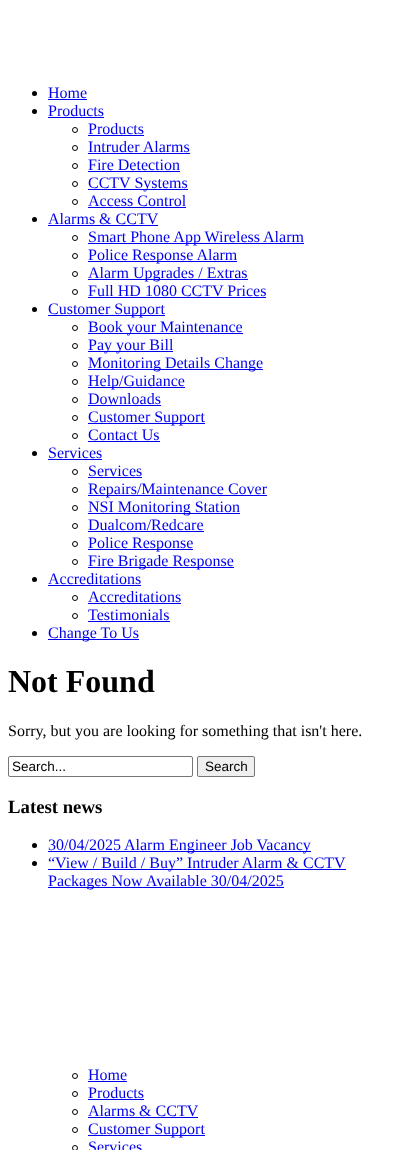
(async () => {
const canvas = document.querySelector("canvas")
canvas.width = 410
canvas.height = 1150
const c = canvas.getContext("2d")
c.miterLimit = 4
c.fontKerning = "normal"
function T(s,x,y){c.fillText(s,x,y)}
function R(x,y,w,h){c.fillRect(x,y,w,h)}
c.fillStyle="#fff"
R(0,0,410,1150)
c.fillStyle="#000"
c.beginPath()
c.arc(34.5,93.5,2.5,0,7)
c.fill()
c.font="16px Liberation Serif"
c.fillStyle="#00e"
T("Home",48,98)
R(48,99,39,1)
c.fillStyle="#000"
c.beginPath()
c.arc(34.5,111.5,2.5,0,7)
c.fill()
c.fillStyle="#00e"
T("Products",48,116)
R(48,117,56,1)
c.beginPath()
c.arc(75,130,2.5,0,7)
c.strokeStyle="#000"
c.stroke()
T("Products",88,134)
R(88,135,56,1)
c.beginPath()
c.arc(75,148,2.5,0,7)
c.stroke()
T("Intruder Alarms",88,152)
R(88,153,102,1)
c.beginPath()
c.arc(75,166,2.5,0,7)
c.stroke()
T("Fire Detection",88,170)
R(88,171,92,1)
c.beginPath()
c.arc(75,184,2.5,0,7)
c.stroke()
R(88,189,100,1)
T("CCTV Systems",88,188)
c.beginPath()
c.arc(75,202,2.5,0,7)
c.stroke()
T("Access Control",88,206)
R(88,207,98,1)
c.fillStyle="#000"
c.beginPath()
c.arc(34.5,219.5,2.5,0,7)
c.fill()
c.fillStyle="#00e"
T("Alarms & CCTV",48,224)
R(48,225,110,1)
c.beginPath()
c.arc(75,238,2.5,0,7)
c.stroke()
R(88,243,216,1)
T("Smart Phone App Wireless Alarm",88,242)
c.beginPath()
c.arc(75,256,2.5,0,7)
c.stroke()
R(88,261,149,1)
T("Police Response Alarm",88,260)
c.beginPath()
c.arc(75,274,2.5,0,7)
c.stroke()
R(88,279,160,1)
T("Alarm Upgrades / Extras",88,278)
c.beginPath()
c.arc(75,292,2.5,0,7)
c.stroke()
T("Full HD 1080 CCTV Prices",88,296)
R(88,297,178,1)
c.fillStyle="#000"
c.beginPath()
c.arc(34.5,309.5,2.5,0,7)
c.fill()
c.fillStyle="#00e"
R(48,315,117,1)
T("Customer Support",48,314)
c.beginPath()
c.arc(75,328,2.5,0,7)
c.stroke()
R(88,333,155,1)
T("Book your Maintenance",88,332)
c.beginPath()
c.arc(75,346,2.5,0,7)
c.stroke()
R(88,351,85,1)
T("Pay your Bill",88,350)
c.beginPath()
c.arc(75,364,2.5,0,7)
c.stroke()
R(88,369,175,1)
T("Monitoring Details Change",88,368)
c.beginPath()
c.arc(75,382,2.5,0,7)
c.stroke()
R(88,387,97,1)
T("Help/Guidance",88,386)
c.beginPath()
c.arc(75,400,2.5,0,7)
c.stroke()
T("Downloads",88,404)
R(88,405,73,1)
c.beginPath()
c.arc(75,418,2.5,0,7)
c.stroke()
R(88,423,117,1)
T("Customer Support",88,422)
c.beginPath()
c.arc(75,436,2.5,0,7)
c.stroke()
T("Contact Us",88,440)
R(88,441,72,1)
c.fillStyle="#000"
c.beginPath()
c.arc(34.5,453.5,2.5,0,7)
c.fill()
c.fillStyle="#00e"
T("Services",48,458)
R(48,459,54,1)
c.beginPath()
c.arc(75,472,2.5,0,7)
c.stroke()
T("Services",88,476)
R(88,477,54,1)
c.beginPath()
c.arc(75,490,2.5,0,7)
c.stroke()
R(88,495,179,1)
T("Repairs/Maintenance Cover",88,494)
c.beginPath()
c.arc(75,508,2.5,0,7)
c.stroke()
R(88,513,152,1)
T("NSI Monitoring Station",88,512)
c.beginPath()
c.arc(75,526,2.5,0,7)
c.stroke()
T("Dualcom/Redcare",88,530)
R(88,531,116,1)
c.beginPath()
c.arc(75,544,2.5,0,7)
c.stroke()
R(88,549,105,1)
T("Police Response",88,548)
c.beginPath()
c.arc(75,562,2.5,0,7)
c.stroke()
R(88,567,146,1)
T("Fire Brigade Response",88,566)
c.fillStyle="#000"
c.beginPath()
c.arc(34.5,579.5,2.5,0,7)
c.fill()
c.fillStyle="#00e"
T("Accreditations",48,584)
R(48,585,93,1)
c.beginPath()
c.arc(75,598,2.5,0,7)
c.stroke()
T("Accreditations",88,602)
R(88,603,93,1)
c.beginPath()
c.arc(75,616,2.5,0,7)
c.stroke()
T("Testimonials",88,620)
R(88,621,82,1)
c.fillStyle="#000"
c.beginPath()
c.arc(34.5,633.5,2.5,0,7)
c.fill()
c.fillStyle="#00e"
R(48,639,91,1)
T("Change To Us",48,638)
c.font="bold 32px Liberation Serif"
c.fillStyle="#000"
T("Not Found",8,692)
c.font="16px Liberation Serif"
T("Sorry, but you are looking for something that isn't here.",8,736)
c.beginPath()
c.roundRect(8.5,756.5,184,20,1.5)
c.strokeStyle="#767676"
c.stroke()
c.font="13.5px Liberation Sans"
T("Search...",12,771)
c.fillStyle="#efefef"
c.beginPath()
c.roundRect(197.5,756.5,57,20,1.5)
c.fill()
c.stroke()
c.fillStyle="#000"
T("Search",205,771)
c.font="bold 18.75px Liberation Serif"
T("Latest news",8,813)
c.beginPath()
c.arc(34.5,845.5,2.5,0,7)
c.fill()
c.fillStyle="#00e"
R(48,851,263,1)
c.font="16px Liberation Serif"
T("30/04/2025 Alarm Engineer Job Vacancy",48,850)
c.fillStyle="#000"
c.beginPath()
c.arc(34.5,863.5,2.5,0,7)
c.fill()
c.fillStyle="#00e"
R(48,869,298,1)
T("“View / Build / Buy” Intruder Alarm & CCTV",48,868)
R(48,887,236,1)
T("Packages Now Available 30/04/2025",48,886)
c.beginPath()
c.arc(75,1076,2.5,0,7)
c.strokeStyle="#000"
c.stroke()
T("Home",88,1080)
R(88,1081,39,1)
c.beginPath()
c.arc(75,1094,2.5,0,7)
c.stroke()
T("Products",88,1098)
R(88,1099,56,1)
c.beginPath()
c.arc(75,1112,2.5,0,7)
c.stroke()
T("Alarms & CCTV",88,1116)
R(88,1117,110,1)
c.beginPath()
c.arc(75,1130,2.5,0,7)
c.stroke()
R(88,1135,117,1)
T("Customer Support",88,1134)
c.beginPath()
c.arc(75,1148,2.5,0,7)
c.stroke()
T("Services",88,1152)
})()
